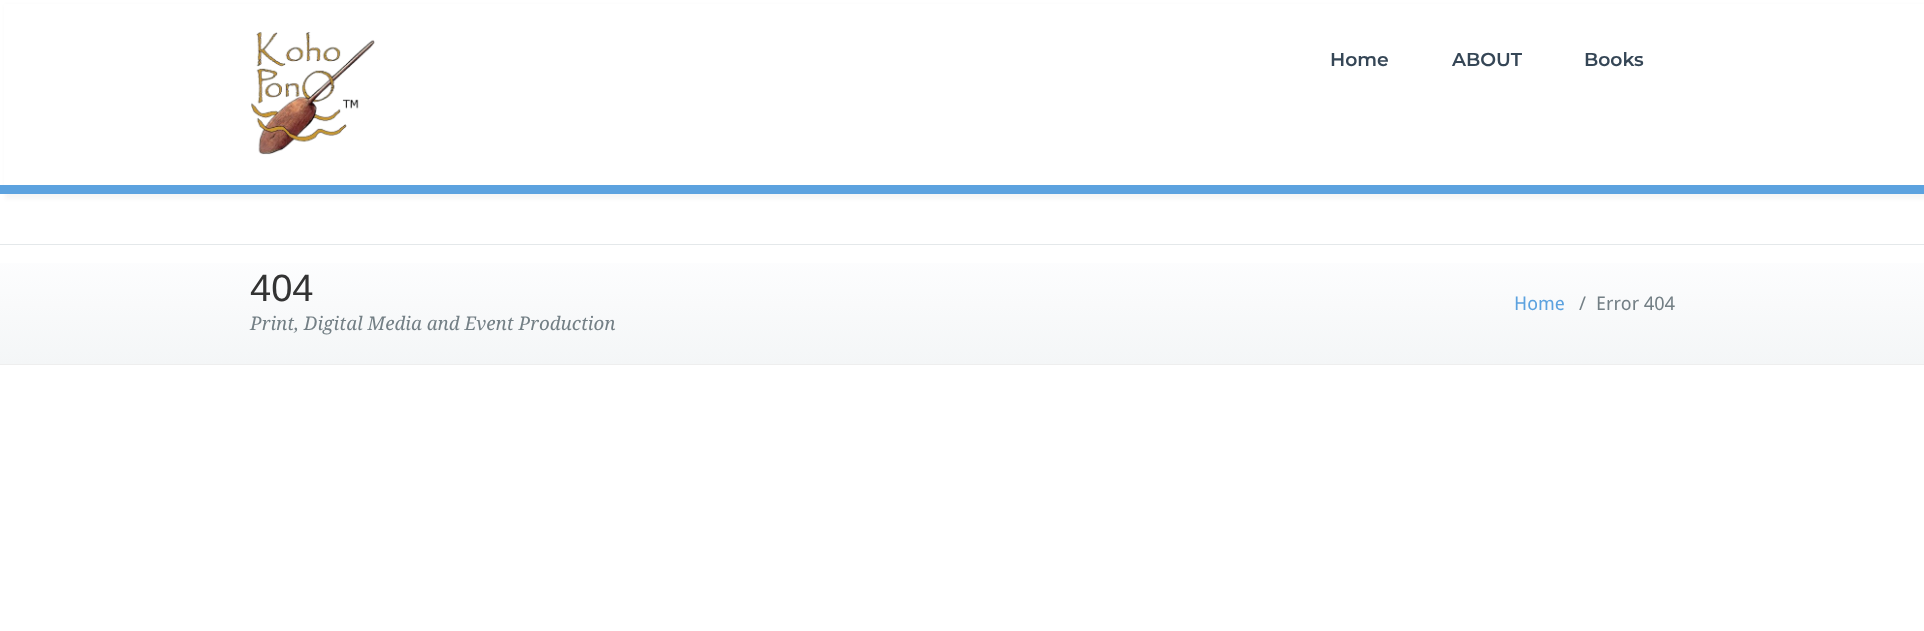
(async () => {
const canvas = document.querySelector("canvas")
canvas.width = 1924
canvas.height = 631
const c = canvas.getContext("2d")
c.miterLimit = 4
c.fontKerning = "normal"
function T(s,x,y){c.fillText(s,x,y)}
function R(x,y,w,h){c.fillRect(x,y,w,h)}
async function I(src,x,y,w,h){const img=new Image();img.src=src;await img.decode();c.drawImage(img,x,y,w,h)}
let gradient
c.fillStyle="#fff"
R(0,0,1924,631)
c.fillStyle="#0000000a"
c.filter="blur(2px)"
c.beginPath()
c.rect(5,5,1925,194)
c.fill()
c.filter="none"
c.fillStyle="#fff"
R(4,4,1920,181)
c.fillStyle="#5ca2df"
R(0,185,1924,9)
await I("1.png",251,32,124,123)
c.font="600 18.75px Montserrat"
c.fillStyle="#354656"
T("Home",1330,66)
T("ABOUT",1452,66)
T("Books",1584,66)
gradient = c.createLinearGradient(963,245,963,364)
gradient.addColorStop(0,"#fefeff")
gradient.addColorStop(1,"#f4f6f7")
c.fillStyle = gradient
R(0,263,1924,101)
c.fillStyle="#e4e8ea"
R(0,244,1924,1)
c.fillStyle="#eee"
R(0,364,1924,1)
c.font="38px Liberation Sans"
c.fillStyle="#333"
T("404",250,301)
c.font="italic 18.75px Droid Serif"
c.fillStyle="#737f85"
T("Print, Digital Media and Event Production",250,330)
c.font="18.75px Droid Sans"
c.fillStyle="#5ca2df"
T("Home",1514,310)
c.fillStyle="#737f85"
T("/",1579,310)
T("Error 404",1596,310)
})()
